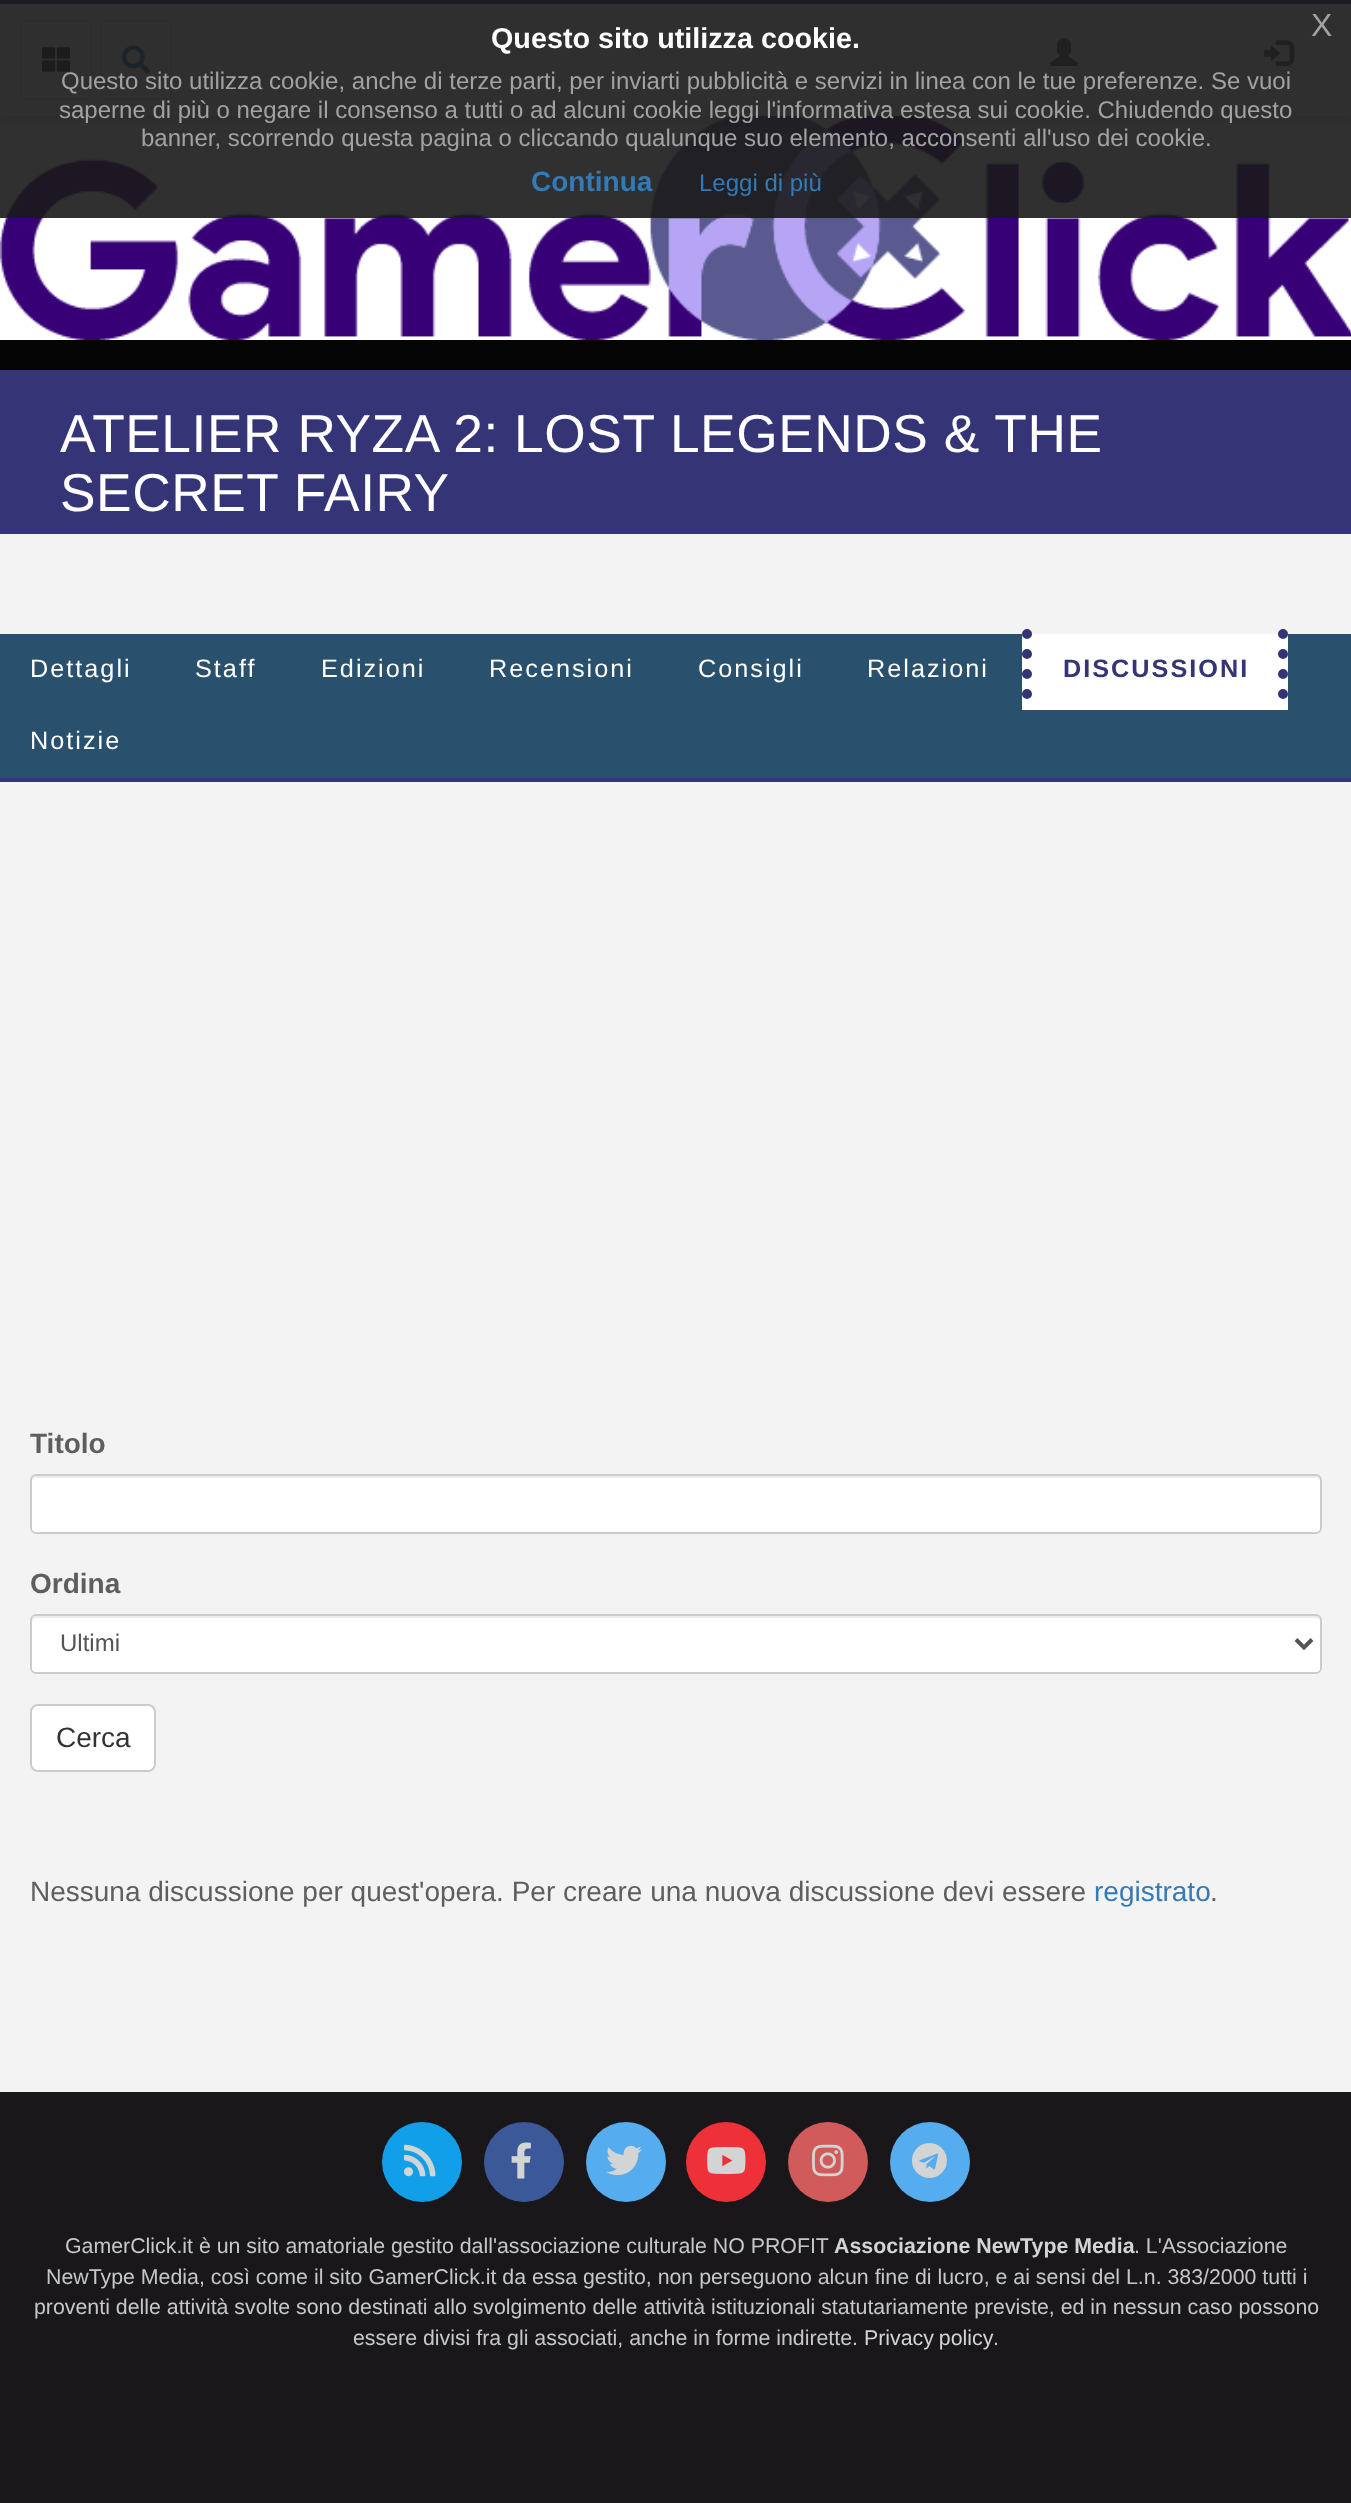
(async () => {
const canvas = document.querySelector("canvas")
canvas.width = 1351
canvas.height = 2503
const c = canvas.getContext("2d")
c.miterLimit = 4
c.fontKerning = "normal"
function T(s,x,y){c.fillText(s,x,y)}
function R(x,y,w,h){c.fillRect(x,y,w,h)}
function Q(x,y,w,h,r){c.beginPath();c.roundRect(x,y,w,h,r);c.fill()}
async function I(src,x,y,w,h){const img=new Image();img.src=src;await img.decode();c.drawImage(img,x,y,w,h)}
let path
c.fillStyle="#1a171b"
R(0,0,1351,2503)
c.fillStyle="#fff"
R(0,116,1351,224)
await I("5.png",0,116,1351,224)
c.fillStyle="#00000033"
c.filter="blur(5px)"
c.beginPath()
c.rect(0,4,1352,116)
c.fill()
c.filter="none"
c.fillStyle="#f3f3f3"
R(0,4,1351,112)
c.fillStyle="#343477"
R(0,0,1351,4)
c.strokeStyle="#ddd"
c.lineWidth=2
c.strokeRect(21,21,70,78)
await I("1.png",42,47,28,25)
c.strokeRect(101,21,70,78)
await I("2.png",122,45,28,29)
await I("3.png",1050,38,28,28)
await I("4.png",1264,40,31,26)
c.fillStyle="#191919e6"
R(0,0,1351,218)
c.font="bold 28.75px Liberation Sans"
c.fillStyle="#fff"
T("Questo sito utilizza cookie.",491,48)
c.font="32px Liberation Sans"
c.fillStyle="#a2a2a2"
T("X",1311,36)
c.font="24px Liberation Sans"
T("Questo sito utilizza cookie, anche di terze parti, per inviarti pubblicità e servizi in linea con le tue preferenze. Se vuoi",61,89)
T("saperne di più o negare il consenso a tutti o ad alcuni cookie leggi l'informativa estesa sui cookie. Chiudendo questo",59,118)
T("banner, scorrendo questa pagina o cliccando qualunque suo elemento, acconsenti all'uso dei cookie.",141,146)
c.font="bold 28px Liberation Sans"
c.fillStyle="#337ab7"
T("Continua",531,191)
c.font="24px Liberation Sans"
T("Leggi di più",699,191)
c.fillStyle="#050505"
R(0,340,1351,30)
c.fillStyle="#343477"
R(0,370,1351,164)
c.fillStyle="#f3f3f3"
R(0,534,1351,1558)
c.letterSpacing="0.55px"
c.font="53.3px Liberation Sans"
c.fillStyle="#fff"
T("ATELIER RYZA 2: LOST LEGENDS & THE",60,452)
T("SECRET FAIRY",60,511)
c.fillStyle="#29506d"
R(0,634,1351,144)
c.fillStyle="#343477"
R(0,778,1351,4)
c.letterSpacing="2px"
c.font="25.25px Liberation Sans"
c.fillStyle="#fff"
T("Dettagli",30,677)
T("Staff",195,677)
T("Edizioni",321,677)
T("Recensioni",489,677)
T("Consigli",698,677)
T("Relazioni",867,677)
R(1022,634,266,76)
path = new Path2D("M1283 634v76")
c.strokeStyle="#343477"
c.lineWidth=10
c.lineCap="round"
c.setLineDash([0,20])
c.stroke(path)
path = new Path2D("M1027 634v76")
c.stroke(path)
c.font="bold 25.25px Liberation Sans"
c.fillStyle="#343477"
T("DISCUSSIONI",1063,677)
c.font="25.25px Liberation Sans"
c.fillStyle="#fff"
T("Notizie",30,749)
c.letterSpacing="0px"
c.font="bold 28px Liberation Sans"
c.fillStyle="#5e5e5e"
T("Titolo",30,1453)
c.fillStyle="#fff"
Q(30,1474,1292,60,6)
c.fillStyle="#ececec"
path = new Path2D("M36 1478h1280c2 0 4 2 4 4c0-3 0-6-4-6h-1280c-4 0-4 3-4 6c0-2 2-4 4-4z")
c.fill(path)
c.beginPath()
c.roundRect(31,1475,1290,58,5)
c.strokeStyle="#ccc"
c.lineWidth=2
c.setLineDash([])
c.stroke()
c.fillStyle="#5e5e5e"
T("Ordina",30,1593)
c.fillStyle="#fff"
Q(30,1614,1292,60,6)
c.fillStyle="#ececec"
path = new Path2D("M36 1618h1280c2 0 4 2 4 4c0-3 0-6-4-6h-1280c-4 0-4 3-4 6c0-2 2-4 4-4z")
c.fill(path)
c.beginPath()
c.roundRect(31,1615,1290,58,5)
c.stroke()
path = new Path2D("M1296 1639.5l8 8l8-8")
c.strokeStyle="#555"
c.lineWidth=4
c.lineCap="butt"
c.stroke(path)
c.font="24px Liberation Sans"
c.fillStyle="#555"
T("Ultimi",60,1651)
c.fillStyle="#fff"
c.beginPath()
c.roundRect(31,1705,124,66,7)
c.fill()
c.strokeStyle="#ccc"
c.lineWidth=2
c.stroke()
c.font="28px Liberation Sans"
c.fillStyle="#333"
T("Cerca",56,1747)
c.fillStyle="#5e5e5e"
T("Nessuna discussione per quest'opera. Per creare una nuova discussione devi essere",30,1901)
c.fillStyle="#337ab7"
T("registrato",1094,1901)
c.fillStyle="#5e5e5e"
T(".",1210,1901)
c.fillStyle="#129fea"
c.beginPath()
c.arc(422,2162,40,0,7)
c.fill()
await I("6.png",404,2144,32,33)
c.fillStyle="#3b5998"
c.beginPath()
c.arc(524,2162,40,0,7)
c.fill()
await I("7.png",511,2142,20,37)
c.fillStyle="#55acee"
c.beginPath()
c.arc(626,2162,40,0,7)
c.fill()
await I("8.png",606,2145,36,31)
c.fillStyle="#ee3138"
c.beginPath()
c.arc(726,2162,40,0,7)
c.fill()
await I("9.png",707,2147,39,27)
c.fillStyle="#d15a5a"
c.beginPath()
c.arc(828,2162,40,0,7)
c.fill()
await I("10.png",812,2144,32,33)
c.fillStyle="#55acee"
c.beginPath()
c.arc(930,2162,40,0,7)
c.fill()
await I("11.png",912,2143,35,35)
c.font="21.33px Liberation Sans"
c.fillStyle="#c6c8c7"
T("GamerClick.it è un sito amatoriale gestito dall'associazione culturale NO PROFIT",65,2253)
c.font="bold 21.33px Liberation Sans"
c.fillStyle="#d3d5d4"
T("Associazione NewType Media",834,2253)
c.font="21.33px Liberation Sans"
c.fillStyle="#c6c8c7"
T(". L'Associazione",1134,2253)
T("NewType Media, così come il sito GamerClick.it da essa gestito, non perseguono alcun fine di lucro, e ai sensi del L.n. 383/2000 tutti i",46,2284)
T("proventi delle attività svolte sono destinati allo svolgimento delle attività istituzionali statutariamente previste, ed in nessun caso possono",34,2314)
T("essere divisi fra gli associati, anche in forme indirette.",353,2345)
c.wordSpacing="-1px"
c.fillStyle="#d3d5d4"
T("Privacy policy",864,2345)
c.wordSpacing="0px"
c.fillStyle="#c6c8c7"
T(".",993,2345)
})()
